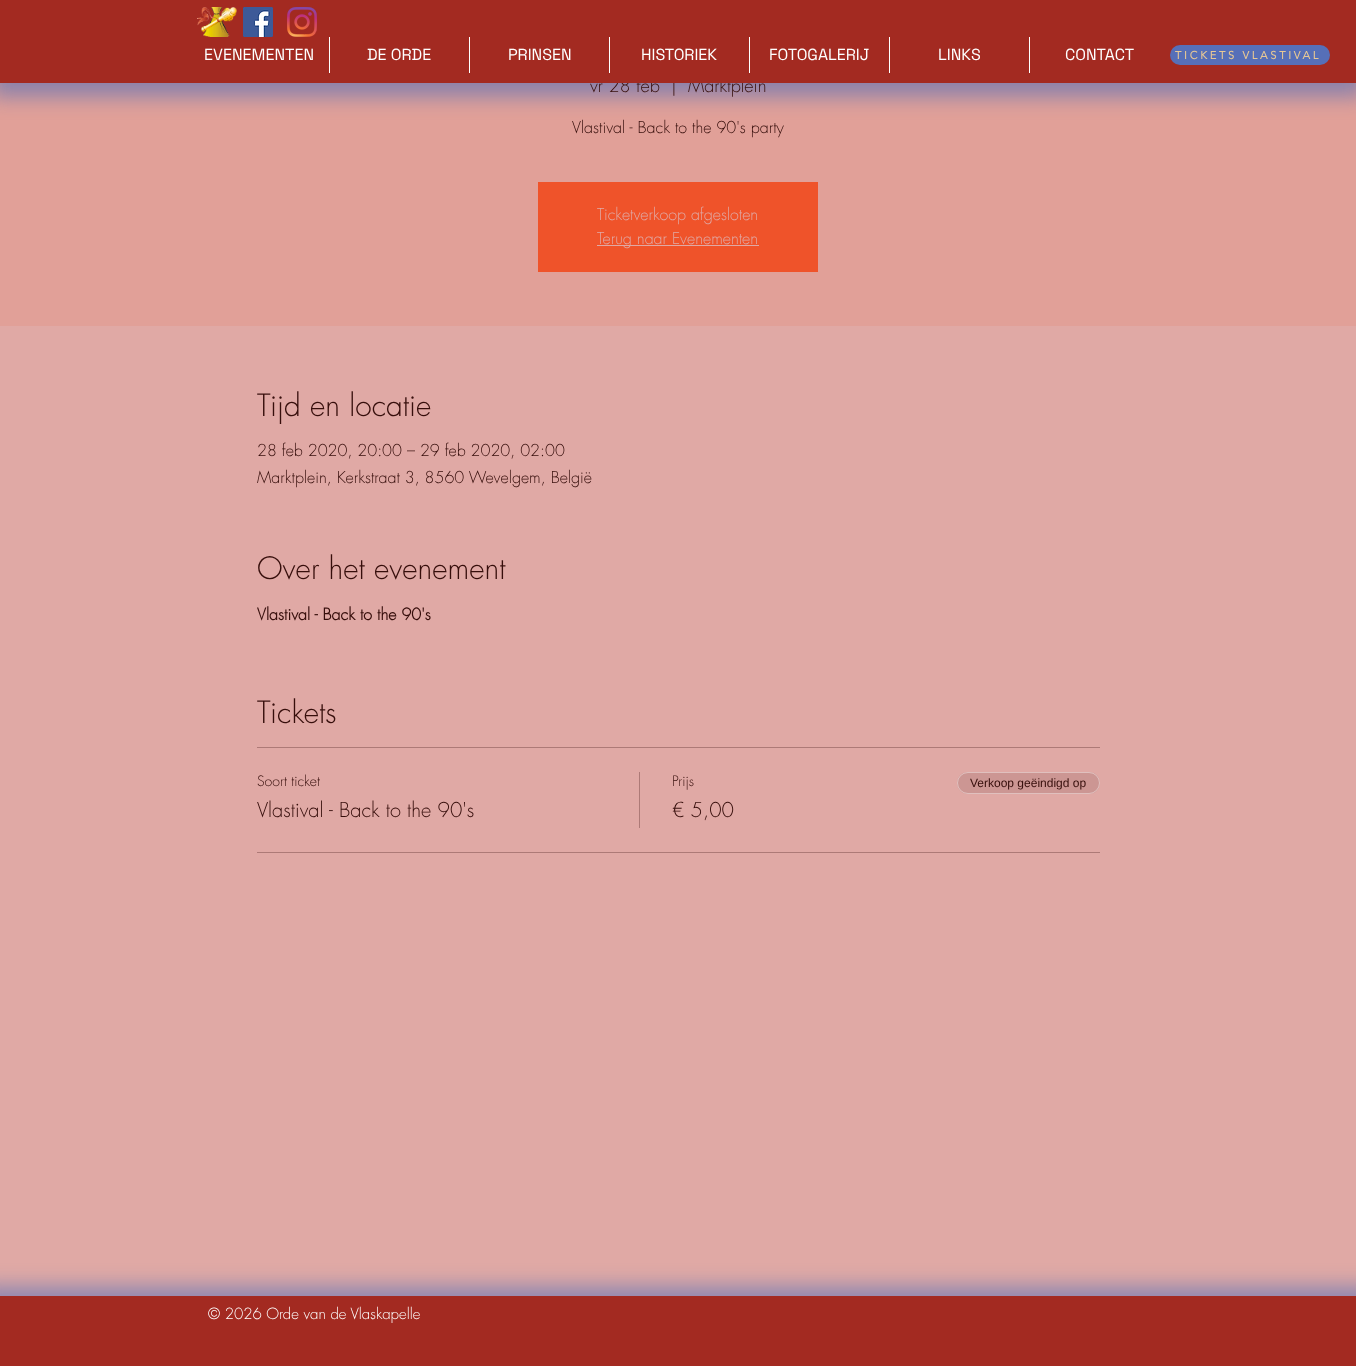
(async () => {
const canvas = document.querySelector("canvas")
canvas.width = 1356
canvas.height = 1366
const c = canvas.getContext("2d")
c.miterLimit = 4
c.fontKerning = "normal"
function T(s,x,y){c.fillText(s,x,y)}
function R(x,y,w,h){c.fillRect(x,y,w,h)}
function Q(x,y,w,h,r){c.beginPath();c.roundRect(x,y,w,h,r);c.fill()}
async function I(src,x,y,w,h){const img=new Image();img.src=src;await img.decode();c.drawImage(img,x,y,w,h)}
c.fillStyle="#e0a9a5"
R(0,0,1356,1366)
c.fillStyle="#e1a098"
R(0,83,1356,243)
c.fillStyle="#536eb799"
c.filter="blur(10px)"
c.beginPath()
c.rect(-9,-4,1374,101)
c.fill()
c.filter="none"
c.font="300 18px futura"
c.fillStyle="#360e0b"
T("vr 28 feb",590,92)
T("|",671,92)
T("Marktplein",688,92)
c.fillStyle="#a32a21"
R(0,0,1356,83)
await I("1.png",197,7,40,30)
await I("2.png",243,7,30,30)
await I("3.png",287,7,30,30)
c.font="16px Space Grotesk"
c.fillStyle="#fff"
T("EVENEMENTEN",204,60)
R(329,37,1,36)
T("DE ORDE",367,60)
R(469,37,1,36)
T("PRINSEN",508,60)
R(609,37,1,36)
T("HISTORIEK",641,60)
R(749,37,1,36)
T("FOTOGALERIJ",769,60)
R(889,37,1,36)
T("LINKS",938,60)
R(1029,37,1,36)
T("CONTACT",1065,60)
c.fillStyle="#566fb8"
Q(1170,45,160,20,10)
c.letterSpacing="2.75px"
c.font="bold 11px 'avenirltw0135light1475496'"
c.fillStyle="#e8c894"
T("TICKETS VLASTIVAL",1175,59)
c.letterSpacing="0px"
c.font="300 16px futura"
c.fillStyle="#360e0b"
T("Vlastival - Back to the 90's party",572,133)
c.fillStyle="#ef532a"
R(538,182,280,90)
c.fillStyle="#e0a9a5"
T("Ticketverkoop afgesloten",597,220)
R(597,245,162,1)
T("Terug naar Evenementen",597,244)
c.font="300 30px futura"
c.fillStyle="#360e0b"
T("Tijd en locatie",257,416)
c.font="300 16px futura"
T("28 feb 2020, 20:00 – 29 feb 2020, 02:00",257,456)
T("Marktplein, Kerkstraat 3, 8560 Wevelgem, België",257,483)
c.font="300 30px futura"
T("Over het evenement",257,579)
c.font="bold 16px futura"
T("Vlastival - Back to the 90's",257,620)
c.font="300 30px futura"
T("Tickets",257,723)
c.fillStyle="#ad7a77"
R(257,747,843,1)
R(257,852,843,1)
c.font="300 14px futura"
c.fillStyle="#360e0b"
T("Soort ticket",257,786)
c.font="300 20px futura"
T("Vlastival - Back to the 90's",257,817)
c.fillStyle="#ad7a77"
R(639,772,1,56)
c.font="300 14px futura"
c.fillStyle="#360e0b"
T("Prijs",672,786)
c.font="300 20px futura"
T("€ 5,00",672,817)
c.fillStyle="#cc9693"
Q(957,772,143,22,11)
c.beginPath()
c.roundRect(957.5,772.5,142,21,10.5)
c.strokeStyle="#ffffff66"
c.stroke()
c.font="12px Liberation Sans"
c.fillStyle="#360e0b"
T("Verkoop geëindigd op",970,787)
c.fillStyle="#566fb899"
c.filter="blur(10px)"
c.beginPath()
c.rect(-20,1286,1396,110)
c.fill()
c.filter="none"
c.fillStyle="#a32a21"
R(0,1296,1356,70)
c.font="300 15px futura"
c.fillStyle="#fff"
T("© 2026 Orde van de Vlaskapelle",208,1319)
})()
